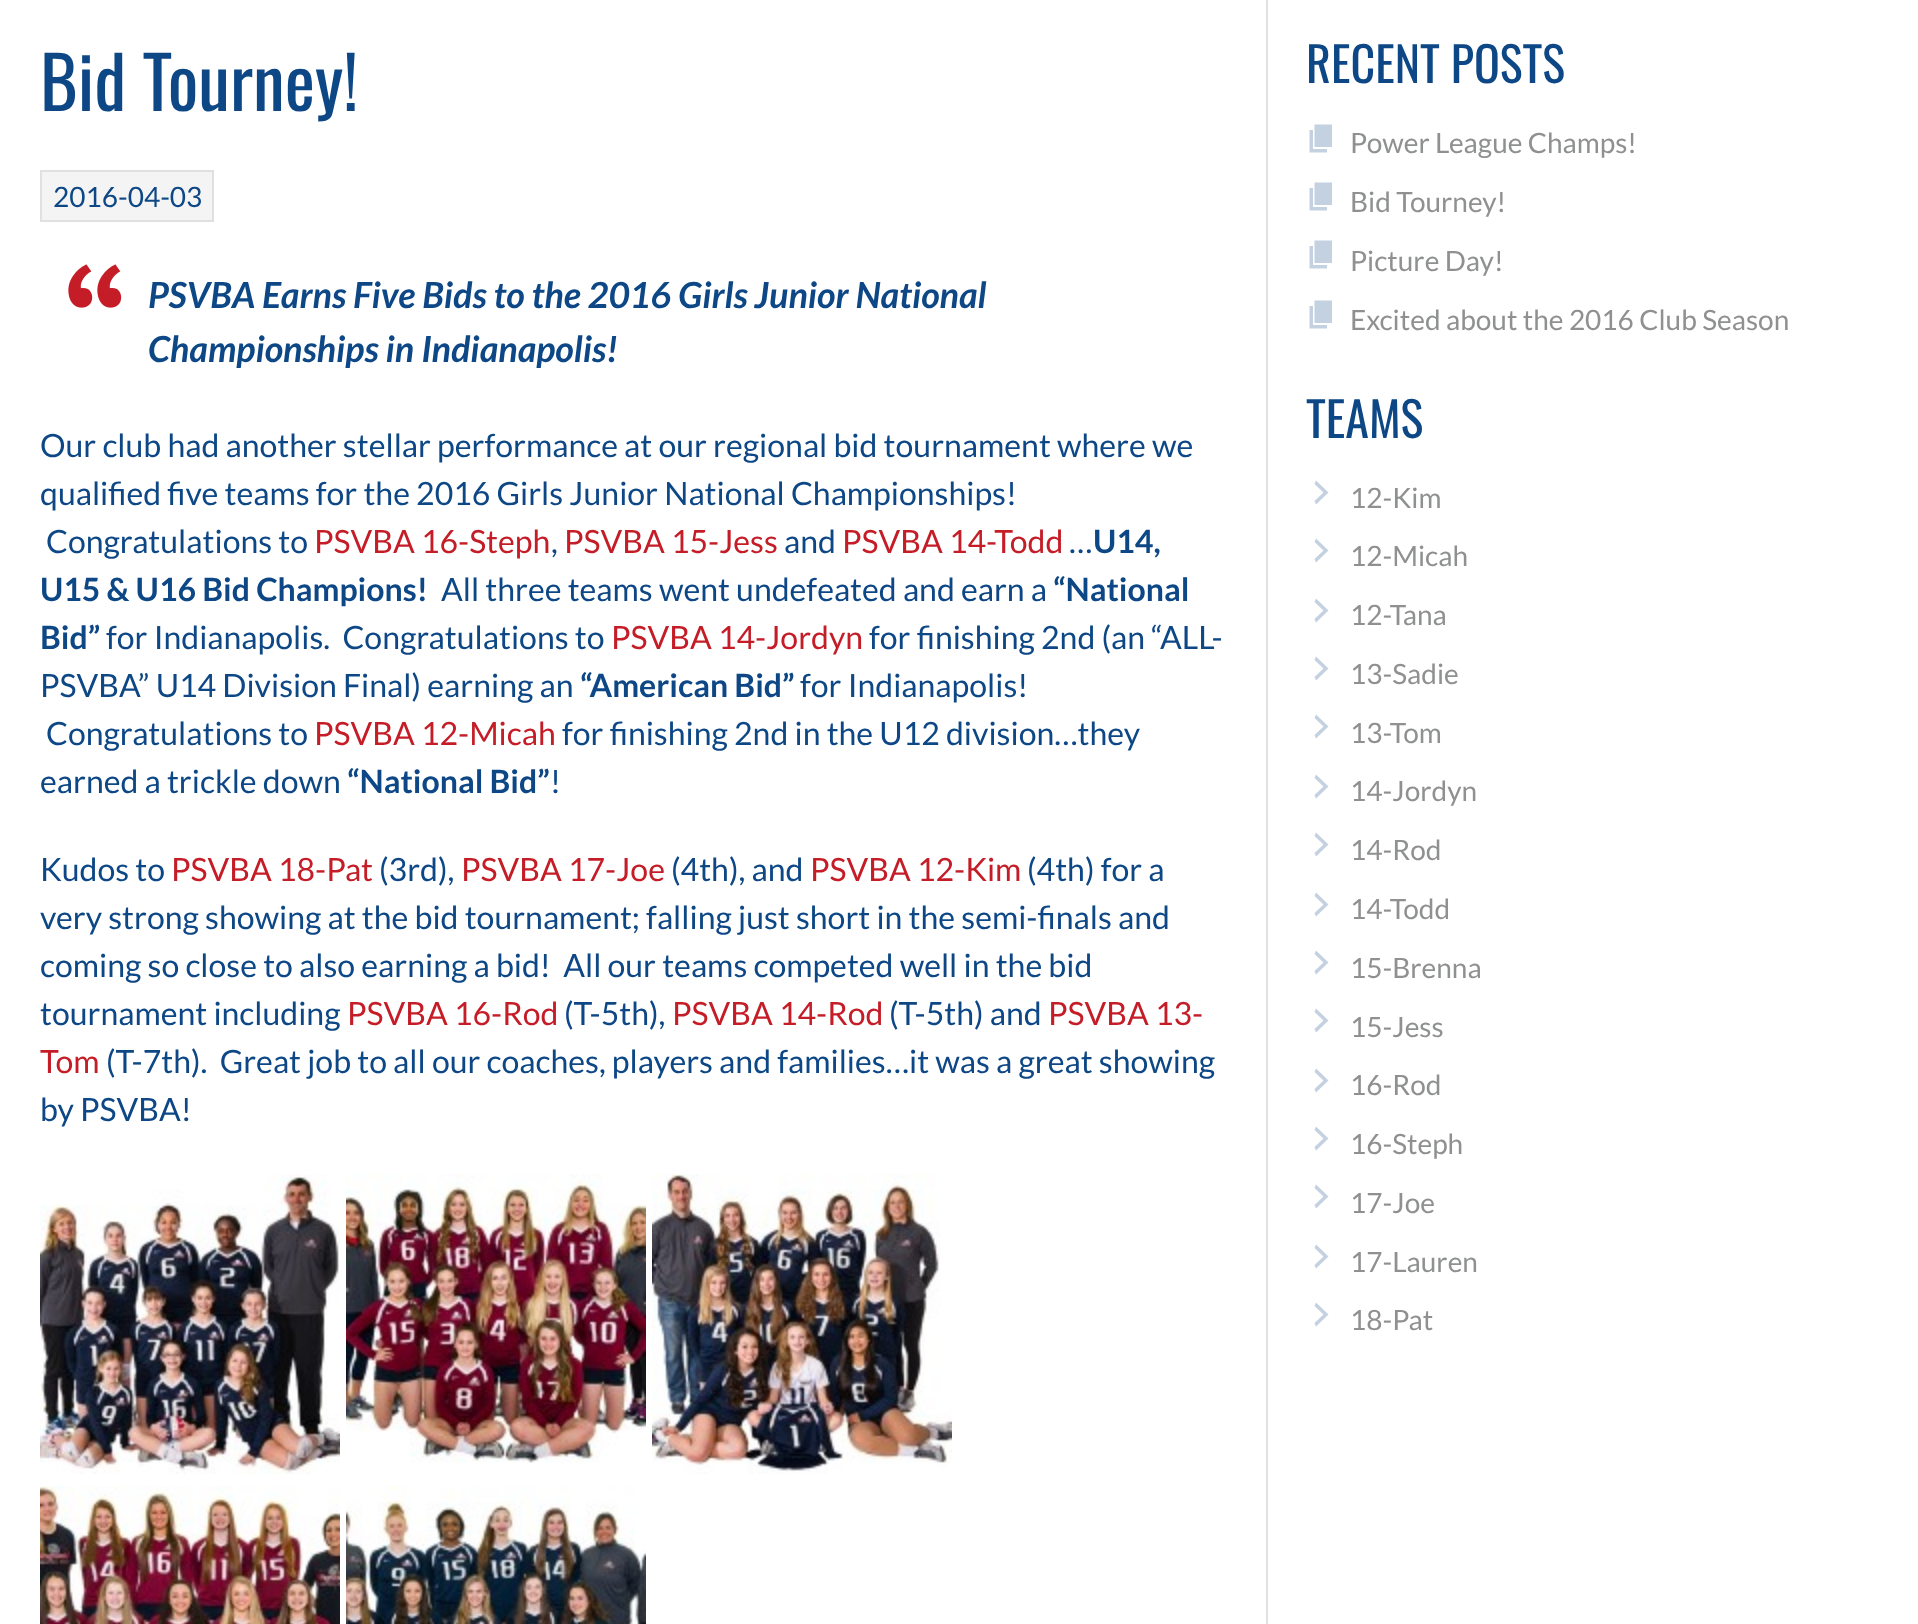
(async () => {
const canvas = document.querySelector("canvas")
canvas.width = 1918
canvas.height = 1624
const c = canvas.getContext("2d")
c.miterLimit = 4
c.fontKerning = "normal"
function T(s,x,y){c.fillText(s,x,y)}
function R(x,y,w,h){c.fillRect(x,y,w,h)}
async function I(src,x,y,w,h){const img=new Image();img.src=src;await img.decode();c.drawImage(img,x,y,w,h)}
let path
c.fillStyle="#fff"
R(0,0,1918,1624)
c.fillStyle="#e0e0e0"
R(1266,0,2,1624)
c.font="72px Oswald"
c.fillStyle="#0d4785"
T("Bid Tourney!",40,111)
c.fillStyle="#f4f4f4"
c.beginPath()
c.rect(41,171,172,50)
c.fill()
c.strokeStyle="#e0e0e0"
c.lineWidth=2
c.stroke()
c.font="28px Lato"
c.fillStyle="#0d4785"
T("2016-04-03",53,207)
await I("1.png",68,264,54,44)
c.font="italic bold 36px Lato"
T("PSVBA Earns Five Bids to the 2016 Girls Junior National",148,308)
T("Championships in Indianapolis!",148,362)
c.font="32px Lato"
T("Our club had another stellar performance at our regional bid tournament where we",40,457)
T("qualified five teams for the 2016 Girls Junior National Championships!",40,505)
T("Congratulations to",46,553)
c.fillStyle="#c51d27"
T("PSVBA 16-Steph",314,553)
c.fillStyle="#0d4785"
T(",",551,553)
c.fillStyle="#c51d27"
T("PSVBA 15-Jess",564,553)
c.fillStyle="#0d4785"
T("and",784,553)
c.fillStyle="#c51d27"
T("PSVBA 14-Todd",842,553)
c.fillStyle="#0d4785"
T("…",1069,553)
c.font="bold 32px Lato"
T("U14,",1093,553)
T("U15 & U16 Bid Champions!",40,601)
c.font="32px Lato"
T("All three teams went undefeated and earn a",441,601)
c.font="bold 32px Lato"
T("“National",1053,601)
T("Bid”",40,649)
c.font="32px Lato"
T("for Indianapolis.  Congratulations to",106,649)
c.fillStyle="#c51d27"
T("PSVBA 14-Jordyn",611,649)
c.fillStyle="#0d4785"
T("for finishing 2nd (an “ALL-",869,649)
T("PSVBA” U14 Division Final) earning an",40,697)
c.font="bold 32px Lato"
T("“American Bid”",580,697)
c.font="32px Lato"
T("for Indianapolis!",800,697)
T("Congratulations to",46,745)
c.fillStyle="#c51d27"
T("PSVBA 12-Micah",314,745)
c.fillStyle="#0d4785"
T("for finishing 2nd in the U12 division…they",562,745)
T("earned a trickle down",40,793)
c.font="bold 32px Lato"
T("“National Bid”",347,793)
c.font="32px Lato"
T("!",550,793)
T("Kudos to",40,881)
c.fillStyle="#c51d27"
T("PSVBA 18-Pat",171,881)
c.fillStyle="#0d4785"
T("(3rd),",379,881)
c.fillStyle="#c51d27"
T("PSVBA 17-Joe",461,881)
c.fillStyle="#0d4785"
T("(4th), and",671,881)
c.fillStyle="#c51d27"
T("PSVBA 12-Kim",810,881)
c.fillStyle="#0d4785"
T("(4th) for a",1027,881)
T("very strong showing at the bid tournament; falling just short in the semi-finals and",40,929)
T("coming so close to also earning a bid!  All our teams competed well in the bid",40,977)
T("tournament including",40,1025)
c.fillStyle="#c51d27"
T("PSVBA 16-Rod",347,1025)
c.fillStyle="#0d4785"
T("(T-5th),",564,1025)
c.fillStyle="#c51d27"
T("PSVBA 14-Rod",672,1025)
c.fillStyle="#0d4785"
T("(T-5th) and",889,1025)
c.fillStyle="#c51d27"
T("PSVBA 13-",1048,1025)
T("Tom",40,1073)
c.fillStyle="#0d4785"
T("(T-7th).  Great job to all our coaches, players and families…it was a great showing",106,1073)
T("by PSVBA!",40,1121)
await I("2.png",40,1174,300,300)
await I("3.png",346,1174,300,289)
await I("4.png",652,1174,300,300)
await I("5.png",40,1486,300,138)
await I("6.png",346,1486,300,138)
c.font="48px Oswald"
T("RECENT POSTS",1306,83)
c.fillStyle="#c3d1e1"
path = new Path2D("M1314.5 147v-22.5h17.5v22.5zm-1.5 2h14v3.5h-17.5v-22.5h3.5z")
c.fill(path)
c.font="28px Lato"
c.fillStyle="#8f9090"
T("Power League Champs!",1350,153)
c.fillStyle="#c3d1e1"
path = new Path2D("M1314.5 205v-22.5h17.5v22.5zm-1.5 2h14v3.5h-17.5v-22.5h3.5z")
c.fill(path)
c.fillStyle="#8f9090"
T("Bid Tourney!",1350,212)
c.fillStyle="#c3d1e1"
path = new Path2D("M1314.5 263v-22.5h17.5v22.5zm-1.5 2h14v3.5h-17.5v-22.5h3.5z")
c.fill(path)
c.fillStyle="#8f9090"
T("Picture Day!",1350,271)
c.fillStyle="#c3d1e1"
path = new Path2D("M1314.5 323v-22.5h17.5v22.5zm-1.5 2h14v3.5h-17.5v-22.5h3.5z")
c.fill(path)
c.fillStyle="#8f9090"
T("Excited about the 2016 Club Season",1350,330)
c.font="48px Oswald"
c.fillStyle="#0d4785"
T("TEAMS",1306,438)
c.fillStyle="#c3d1e1"
path = new Path2D("M1314.5 501l9-8.5l-9-8.5l1.5-3.5l12.5 12l-12.5 12z")
c.fill(path)
c.font="28px Lato"
c.fillStyle="#8f9090"
T("12-Kim",1350,508)
c.fillStyle="#c3d1e1"
path = new Path2D("M1314.5 559l9-8.5l-9-8.5l1.5-3.5l12.5 12l-12.5 12z")
c.fill(path)
c.fillStyle="#8f9090"
T("12-Micah",1350,566)
c.fillStyle="#c3d1e1"
path = new Path2D("M1314.5 619l9-8.5l-9-8.5l1.5-3.5l12.5 12l-12.5 12z")
c.fill(path)
c.fillStyle="#8f9090"
T("12-Tana",1350,625)
c.fillStyle="#c3d1e1"
path = new Path2D("M1314.5 677l9-8.5l-9-8.5l1.5-3.5l12.5 12l-12.5 12z")
c.fill(path)
c.fillStyle="#8f9090"
T("13-Sadie",1350,684)
c.fillStyle="#c3d1e1"
path = new Path2D("M1314.5 735l9-8.5l-9-8.5l1.5-3.5l12.5 12l-12.5 12z")
c.fill(path)
c.fillStyle="#8f9090"
T("13-Tom",1350,743)
c.fillStyle="#c3d1e1"
path = new Path2D("M1314.5 795l9-8.5l-9-8.5l1.5-3.5l12.5 12l-12.5 12z")
c.fill(path)
c.fillStyle="#8f9090"
T("14-Jordyn",1350,801)
c.fillStyle="#c3d1e1"
path = new Path2D("M1314.5 853l9-8.5l-9-8.5l1.5-3.5l12.5 12l-12.5 12z")
c.fill(path)
c.fillStyle="#8f9090"
T("14-Rod",1350,860)
c.fillStyle="#c3d1e1"
path = new Path2D("M1314.5 913l9-8.5l-9-8.5l1.5-3.5l12.5 12l-12.5 12z")
c.fill(path)
c.fillStyle="#8f9090"
T("14-Todd",1350,919)
c.fillStyle="#c3d1e1"
path = new Path2D("M1314.5 971l9-8.5l-9-8.5l1.5-3.5l12.5 12l-12.5 12z")
c.fill(path)
c.fillStyle="#8f9090"
T("15-Brenna",1350,978)
c.fillStyle="#c3d1e1"
path = new Path2D("M1314.5 1029l9-8.5l-9-8.5l1.5-3.5l12.5 12l-12.5 12z")
c.fill(path)
c.fillStyle="#8f9090"
T("15-Jess",1350,1037)
c.fillStyle="#c3d1e1"
path = new Path2D("M1314.5 1089l9-8.5l-9-8.5l1.5-3.5l12.5 12l-12.5 12z")
c.fill(path)
c.fillStyle="#8f9090"
T("16-Rod",1350,1095)
c.fillStyle="#c3d1e1"
path = new Path2D("M1314.5 1147l9-8.5l-9-8.5l1.5-3.5l12.5 12l-12.5 12z")
c.fill(path)
c.fillStyle="#8f9090"
T("16-Steph",1350,1154)
c.fillStyle="#c3d1e1"
path = new Path2D("M1314.5 1205l9-8.5l-9-8.5l1.5-3.5l12.5 12l-12.5 12z")
c.fill(path)
c.fillStyle="#8f9090"
T("17-Joe",1350,1213)
c.fillStyle="#c3d1e1"
path = new Path2D("M1314.5 1265l9-8.5l-9-8.5l1.5-3.5l12.5 12l-12.5 12z")
c.fill(path)
c.fillStyle="#8f9090"
T("17-Lauren",1350,1272)
c.fillStyle="#c3d1e1"
path = new Path2D("M1314.5 1323l9-8.5l-9-8.5l1.5-3.5l12.5 12l-12.5 12z")
c.fill(path)
c.fillStyle="#8f9090"
T("18-Pat",1350,1330)
})()
